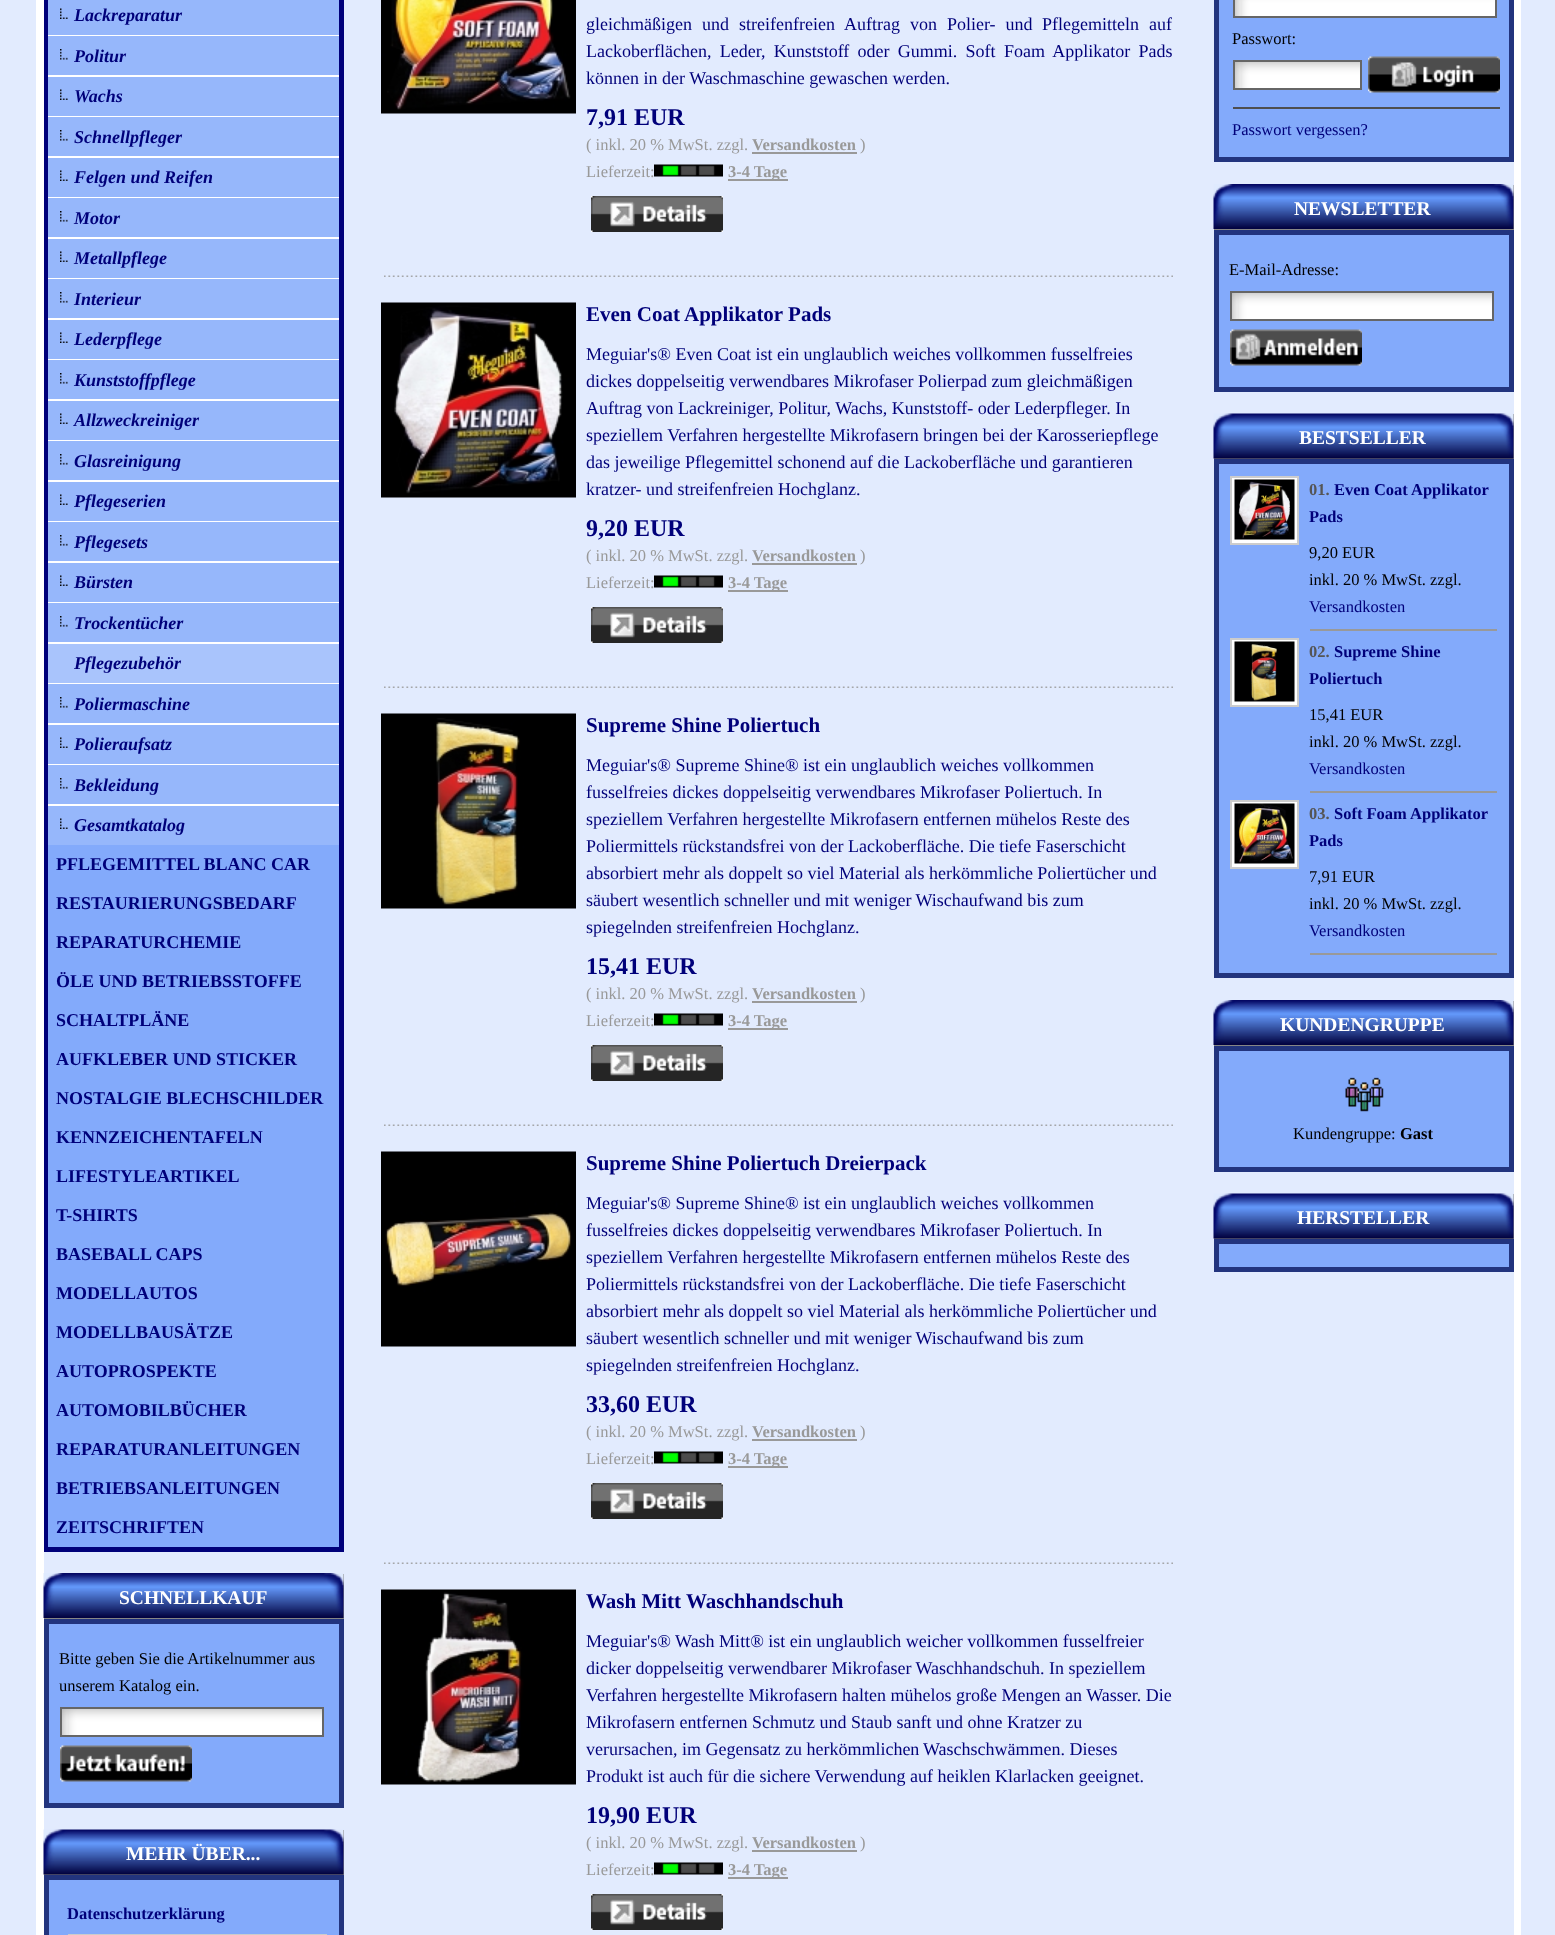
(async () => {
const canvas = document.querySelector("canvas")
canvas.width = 1555
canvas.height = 1935
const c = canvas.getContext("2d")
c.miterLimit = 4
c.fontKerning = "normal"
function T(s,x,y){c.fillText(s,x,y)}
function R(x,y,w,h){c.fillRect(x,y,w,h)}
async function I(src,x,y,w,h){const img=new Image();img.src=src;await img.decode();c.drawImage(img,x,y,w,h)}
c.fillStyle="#e2ebfe"
R(0,0,1555,1935)
c.fillStyle="#fff"
R(1514,0,7,1935)
R(36,0,8,1935)
c.fillStyle="#00007a"
R(339,0,5,1551)
R(44,1547,300,5)
R(44,0,5,1551)
c.fillStyle="#96b7fb"
R(48,0,291,35)
await I("1.png",60,8,8,11)
c.font="italic bold 18px Liberation Serif"
c.fillStyle="#00007a"
T("Lackreparatur",74,21)
c.fillStyle="#fff"
R(48,35,291,1)
c.fillStyle="#96b7fb"
R(48,36,291,39)
await I("2.png",60,49,8,11)
c.fillStyle="#00007a"
T("Politur",74,62)
c.fillStyle="#fff"
R(48,75,291,2)
c.fillStyle="#96b7fb"
R(48,77,291,39)
await I("1.png",60,89,8,11)
c.fillStyle="#00007a"
T("Wachs",74,102)
c.fillStyle="#fff"
R(48,116,291,1)
c.fillStyle="#96b7fb"
R(48,117,291,39)
await I("2.png",60,130,8,11)
c.fillStyle="#00007a"
T("Schnellpfleger",74,143)
c.fillStyle="#fff"
R(48,156,291,2)
c.fillStyle="#96b7fb"
R(48,158,291,39)
await I("1.png",60,170,8,11)
c.fillStyle="#00007a"
T("Felgen und Reifen",74,183)
c.fillStyle="#fff"
R(48,197,291,1)
c.fillStyle="#96b7fb"
R(48,198,291,39)
await I("2.png",60,211,8,11)
c.fillStyle="#00007a"
T("Motor",74,224)
c.fillStyle="#fff"
R(48,237,291,2)
c.fillStyle="#96b7fb"
R(48,239,291,39)
await I("1.png",60,251,8,11)
c.fillStyle="#00007a"
T("Metallpflege",74,264)
c.fillStyle="#fff"
R(48,278,291,1)
c.fillStyle="#96b7fb"
R(48,279,291,39)
await I("2.png",60,292,8,11)
c.fillStyle="#00007a"
T("Interieur",74,305)
c.fillStyle="#fff"
R(48,318,291,2)
c.fillStyle="#96b7fb"
R(48,320,291,39)
await I("1.png",60,332,8,11)
c.fillStyle="#00007a"
T("Lederpflege",74,345)
c.fillStyle="#fff"
R(48,359,291,1)
c.fillStyle="#96b7fb"
R(48,360,291,39)
await I("2.png",60,373,8,11)
c.fillStyle="#00007a"
T("Kunststoffpflege",74,386)
c.fillStyle="#fff"
R(48,399,291,2)
c.fillStyle="#96b7fb"
R(48,401,291,39)
await I("1.png",60,413,8,11)
c.fillStyle="#00007a"
T("Allzweckreiniger",74,426)
c.fillStyle="#fff"
R(48,440,291,1)
c.fillStyle="#96b7fb"
R(48,441,291,39)
await I("2.png",60,454,8,11)
c.fillStyle="#00007a"
T("Glasreinigung",74,467)
c.fillStyle="#fff"
R(48,480,291,2)
c.fillStyle="#96b7fb"
R(48,482,291,39)
await I("1.png",60,494,8,11)
c.fillStyle="#00007a"
T("Pflegeserien",74,507)
c.fillStyle="#fff"
R(48,521,291,1)
c.fillStyle="#96b7fb"
R(48,522,291,39)
await I("2.png",60,535,8,11)
c.fillStyle="#00007a"
T("Pflegesets",74,548)
c.fillStyle="#fff"
R(48,561,291,2)
c.fillStyle="#96b7fb"
R(48,563,291,39)
await I("1.png",60,575,8,11)
c.fillStyle="#00007a"
T("Bürsten",74,588)
c.fillStyle="#fff"
R(48,602,291,1)
c.fillStyle="#96b7fb"
R(48,603,291,39)
await I("2.png",60,616,8,11)
c.fillStyle="#00007a"
T("Trockentücher",74,629)
c.fillStyle="#fff"
R(48,642,291,2)
c.fillStyle="#a9c4fc"
R(48,644,291,39)
c.fillStyle="#00007a"
T("Pflegezubehör",74,669)
c.fillStyle="#fff"
R(48,683,291,1)
c.fillStyle="#96b7fb"
R(48,684,291,39)
await I("2.png",60,697,8,11)
c.fillStyle="#00007a"
T("Poliermaschine",74,710)
c.fillStyle="#fff"
R(48,723,291,2)
c.fillStyle="#96b7fb"
R(48,725,291,39)
await I("1.png",60,737,8,11)
c.fillStyle="#00007a"
T("Polieraufsatz",74,750)
c.fillStyle="#fff"
R(48,764,291,1)
c.fillStyle="#96b7fb"
R(48,765,291,39)
await I("2.png",60,778,8,11)
c.fillStyle="#00007a"
T("Bekleidung",74,791)
c.fillStyle="#fff"
R(48,804,291,2)
c.fillStyle="#96b7fb"
R(48,806,291,39)
await I("1.png",60,818,8,11)
c.fillStyle="#00007a"
T("Gesamtkatalog",74,831)
c.fillStyle="#83aafb"
R(48,845,291,702)
c.font="bold 18px Liberation Serif"
c.fillStyle="#00007a"
T("PFLEGEMITTEL BLANC CAR",56,870)
T("RESTAURIERUNGSBEDARF",56,909)
T("REPARATURCHEMIE",56,948)
T("ÖLE UND BETRIEBSSTOFFE",56,987)
T("SCHALTPLÄNE",56,1026)
T("AUFKLEBER UND STICKER",56,1065)
T("NOSTALGIE BLECHSCHILDER",56,1104)
T("KENNZEICHENTAFELN",56,1143)
T("LIFESTYLEARTIKEL",56,1182)
T("T-SHIRTS",56,1221)
T("BASEBALL CAPS",56,1260)
T("MODELLAUTOS",56,1299)
T("MODELLBAUSÄTZE",56,1338)
T("AUTOPROSPEKTE",56,1377)
T("AUTOMOBILBÜCHER",56,1416)
T("REPARATURANLEITUNGEN",56,1455)
T("BETRIEBSANLEITUNGEN",56,1494)
T("ZEITSCHRIFTEN",56,1533)
c.fillStyle="#868686"
R(44,1574,300,45)
await I("3.png",43,1573,301,45)
c.font="bold 19.5px Liberation Serif"
c.fillStyle="#fff"
T("SCHNELLKAUF",119,1604)
c.fillStyle="#83aafb"
c.beginPath()
c.rect(46.5,1621.5,295,184)
c.fill()
c.strokeStyle="#22347e"
c.lineWidth=5
c.stroke()
c.font="16.5px Liberation Serif"
c.fillStyle="#000"
T("Bitte geben Sie die Artikelnummer aus",59,1664)
T("unserem Katalog ein.",59,1691)
await I("4.png",62,1709,260,26)
c.strokeStyle="#666"
c.lineWidth=2
c.strokeRect(61,1708,262,28)
await I("5.png",60,1745,132,37)
c.fillStyle="#868686"
R(44,1830,300,45)
await I("6.png",43,1829,301,46)
c.font="bold 19.5px Liberation Serif"
c.fillStyle="#fff"
T("MEHR ÜBER...",126,1860)
c.fillStyle="#83aafb"
c.beginPath()
c.rect(46.5,1877.5,295,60)
c.fill()
c.strokeStyle="#22347e"
c.lineWidth=5
c.stroke()
c.fillStyle="#ccc"
R(68,1934,259,1)
c.font="bold 16.5px Liberation Serif"
c.fillStyle="#00007a"
T("Datenschutzerklärung",67,1919)
await I("7.png",381,0,195,114)
c.font="18px Liberation Serif"
T("gleichmäßigen",586,30)
c.wordSpacing="5.5px"
T("und streifenfreien Auftrag von Polier- und",702,30)
T("Pflegemitteln auf",1042,30)
c.wordSpacing="3.75px"
T("Lackoberflächen, Leder, Kunststoff oder Gummi. Soft",586,57)
T("Foam Applikator Pads",1004,57)
c.wordSpacing="0px"
T("können in der Waschmaschine gewaschen werden.",586,84)
c.font="bold 24px Liberation Serif"
T("7,91 EUR",586,125)
c.font="16.5px Liberation Serif"
c.fillStyle="#999"
T("( inkl. 20 % MwSt. zzgl.",586,150)
c.font="bold 16.5px Liberation Serif"
T("Versandkosten",752,150)
R(752,152,105,2)
c.font="16.5px Liberation Serif"
T(")",860,150)
T("Lieferzeit:",586,177)
await I("8.png",654,164,69,13)
R(728,179,60,2)
c.font="bold 16.5px Liberation Serif"
T("3-4 Tage",728,177)
await I("9.png",591,196,132,36)
await I("10.png",384,275,789,2)
await I("11.png",381,302,195,196)
c.font="bold 21px Liberation Serif"
c.fillStyle="#00007a"
T("Even Coat Applikator Pads",586,321)
c.font="18px Liberation Serif"
T("Meguiar's® Even Coat ist ein unglaublich weiches vollkommen fusselfreies",586,360)
T("dickes doppelseitig verwendbares Mikrofaser Polierpad zum gleichmäßigen",586,387)
T("Auftrag von Lackreiniger, Politur, Wachs, Kunststoff- oder Lederpfleger. In",586,414)
T("speziellem Verfahren hergestellte Mikrofasern bringen bei der Karosseriepflege",586,441)
T("das jeweilige Pflegemittel schonend auf die Lackoberfläche und garantieren",586,468)
T("kratzer- und streifenfreien Hochglanz.",586,495)
c.font="bold 24px Liberation Serif"
T("9,20 EUR",586,536)
c.font="16.5px Liberation Serif"
c.fillStyle="#999"
T("( inkl. 20 % MwSt. zzgl.",586,561)
c.font="bold 16.5px Liberation Serif"
T("Versandkosten",752,561)
R(752,563,105,2)
c.font="16.5px Liberation Serif"
T(")",860,561)
T("Lieferzeit:",586,588)
await I("8.png",654,575,69,13)
R(728,590,60,2)
c.font="bold 16.5px Liberation Serif"
T("3-4 Tage",728,588)
await I("9.png",591,607,132,36)
await I("10.png",384,686,789,2)
await I("12.png",381,713,195,196)
c.font="bold 21px Liberation Serif"
c.fillStyle="#00007a"
T("Supreme Shine Poliertuch",586,732)
c.font="18px Liberation Serif"
T("Meguiar's® Supreme Shine® ist ein unglaublich weiches vollkommen",586,771)
T("fusselfreies dickes doppelseitig verwendbares Mikrofaser Poliertuch. In",586,798)
T("speziellem Verfahren hergestellte Mikrofasern entfernen mühelos Reste des",586,825)
T("Poliermittels rückstandsfrei von der Lackoberfläche. Die tiefe Faserschicht",586,852)
T("absorbiert mehr als doppelt so viel Material als herkömmliche Poliertücher und",586,879)
T("säubert wesentlich schneller und mit weniger Wischaufwand bis zum",586,906)
T("spiegelnden streifenfreien Hochglanz.",586,933)
c.font="bold 24px Liberation Serif"
T("15,41 EUR",586,974)
c.font="16.5px Liberation Serif"
c.fillStyle="#999"
T("( inkl. 20 % MwSt. zzgl.",586,999)
c.font="bold 16.5px Liberation Serif"
T("Versandkosten",752,999)
R(752,1001,105,2)
c.font="16.5px Liberation Serif"
T(")",860,999)
T("Lieferzeit:",586,1026)
await I("8.png",654,1013,69,13)
R(728,1028,60,2)
c.font="bold 16.5px Liberation Serif"
T("3-4 Tage",728,1026)
await I("9.png",591,1045,132,36)
await I("10.png",384,1124,789,2)
await I("13.png",381,1151,195,196)
c.font="bold 21px Liberation Serif"
c.fillStyle="#00007a"
T("Supreme Shine Poliertuch Dreierpack",586,1170)
c.font="18px Liberation Serif"
T("Meguiar's® Supreme Shine® ist ein unglaublich weiches vollkommen",586,1209)
T("fusselfreies dickes doppelseitig verwendbares Mikrofaser Poliertuch. In",586,1236)
T("speziellem Verfahren hergestellte Mikrofasern entfernen mühelos Reste des",586,1263)
T("Poliermittels rückstandsfrei von der Lackoberfläche. Die tiefe Faserschicht",586,1290)
T("absorbiert mehr als doppelt so viel Material als herkömmliche Poliertücher und",586,1317)
T("säubert wesentlich schneller und mit weniger Wischaufwand bis zum",586,1344)
T("spiegelnden streifenfreien Hochglanz.",586,1371)
c.font="bold 24px Liberation Serif"
T("33,60 EUR",586,1412)
c.font="16.5px Liberation Serif"
c.fillStyle="#999"
T("( inkl. 20 % MwSt. zzgl.",586,1437)
c.font="bold 16.5px Liberation Serif"
T("Versandkosten",752,1437)
R(752,1439,105,2)
c.font="16.5px Liberation Serif"
T(")",860,1437)
T("Lieferzeit:",586,1464)
await I("8.png",654,1451,69,13)
R(728,1466,60,2)
c.font="bold 16.5px Liberation Serif"
T("3-4 Tage",728,1464)
await I("9.png",591,1483,132,36)
await I("10.png",384,1562,789,2)
await I("14.png",381,1589,195,196)
c.font="bold 21px Liberation Serif"
c.fillStyle="#00007a"
T("Wash Mitt Waschhandschuh",586,1608)
c.font="18px Liberation Serif"
T("Meguiar's® Wash Mitt® ist ein unglaublich weicher vollkommen fusselfreier",586,1647)
T("dicker doppelseitig verwendbarer Mikrofaser Waschhandschuh. In speziellem",586,1674)
T("Verfahren hergestellte Mikrofasern halten mühelos große Mengen an Wasser. Die",586,1701)
T("Mikrofasern entfernen Schmutz und Staub sanft und ohne Kratzer zu",586,1728)
T("verursachen, im Gegensatz zu herkömmlichen",586,1755)
T("Waschschwämmen. Dieses",923,1755)
T("Produkt ist auch für die sichere Verwendung auf heiklen Klarlacken geeignet.",586,1782)
c.font="bold 24px Liberation Serif"
T("19,90 EUR",586,1823)
c.font="16.5px Liberation Serif"
c.fillStyle="#999"
T("( inkl. 20 % MwSt. zzgl.",586,1848)
c.font="bold 16.5px Liberation Serif"
T("Versandkosten",752,1848)
R(752,1850,105,2)
c.font="16.5px Liberation Serif"
T(")",860,1848)
T("Lieferzeit:",586,1875)
await I("8.png",654,1862,69,13)
R(728,1877,60,2)
c.font="bold 16.5px Liberation Serif"
T("3-4 Tage",728,1875)
await I("9.png",591,1894,132,36)
c.fillStyle="#83aafb"
c.beginPath()
c.rect(1216.5,-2.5,295,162)
c.fill()
c.stroke()
await I("15.png",1235,0,260,16)
c.strokeStyle="#666"
c.lineWidth=2
c.strokeRect(1234,-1,262,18)
c.font="16.5px Liberation Serif"
c.fillStyle="#000"
T("Passwort:",1232,44)
await I("16.png",1235,62,125,26)
c.strokeRect(1234,61,127,28)
await I("17.png",1368,56,132,37)
c.fillStyle="#4e4e4f"
R(1233,107,267,2)
c.fillStyle="#00007a"
T("Passwort vergessen?",1232,135)
c.fillStyle="#868686"
R(1214,185,300,45)
await I("18.png",1213,184,301,45)
c.font="bold 19.5px Liberation Serif"
c.fillStyle="#fff"
T("NEWSLETTER",1294,215)
c.fillStyle="#83aafb"
c.beginPath()
c.rect(1216.5,232.5,295,157)
c.fill()
c.strokeStyle="#22347e"
c.lineWidth=5
c.stroke()
c.font="16.5px Liberation Serif"
c.fillStyle="#000"
T("E-Mail-Adresse:",1229,275)
await I("4.png",1232,293,260,26)
c.strokeStyle="#666"
c.lineWidth=2
c.strokeRect(1231,292,262,28)
await I("19.png",1230,329,132,37)
c.fillStyle="#868686"
R(1214,414,300,45)
await I("20.png",1213,413,301,46)
c.font="bold 19.5px Liberation Serif"
c.fillStyle="#fff"
T("BESTSELLER",1299,444)
c.fillStyle="#83aafb"
c.beginPath()
c.rect(1216.5,461.5,295,514)
c.fill()
c.strokeStyle="#22347e"
c.lineWidth=5
c.stroke()
c.fillStyle="#fff"
c.beginPath()
c.rect(1231,477,67,67)
c.fill()
c.strokeStyle="#ccc"
c.lineWidth=2
c.stroke()
await I("21.png",1234,479,61,61)
c.font="bold 16.5px Liberation Serif"
c.fillStyle="#555"
T("01.",1309,495)
c.fillStyle="#00007a"
T("Even Coat Applikator",1334,495)
T("Pads",1309,522)
c.font="16.5px Liberation Serif"
c.fillStyle="#000"
T("9,20 EUR",1309,558)
T("inkl. 20 % MwSt. zzgl.",1309,585)
c.fillStyle="#00007a"
T("Versandkosten",1309,612)
c.fillStyle="#999"
R(1310,629,187,2)
c.fillStyle="#fff"
c.beginPath()
c.rect(1231,639,67,67)
c.fill()
c.stroke()
await I("22.png",1234,641,61,61)
c.font="bold 16.5px Liberation Serif"
c.fillStyle="#555"
T("02.",1309,657)
c.fillStyle="#00007a"
T("Supreme Shine",1334,657)
T("Poliertuch",1309,684)
c.font="16.5px Liberation Serif"
c.fillStyle="#000"
T("15,41 EUR",1309,720)
T("inkl. 20 % MwSt. zzgl.",1309,747)
c.fillStyle="#00007a"
T("Versandkosten",1309,774)
c.fillStyle="#999"
R(1310,791,187,2)
c.fillStyle="#fff"
c.beginPath()
c.rect(1231,801,67,67)
c.fill()
c.stroke()
await I("23.png",1234,803,61,61)
c.font="bold 16.5px Liberation Serif"
c.fillStyle="#555"
T("03.",1309,819)
c.fillStyle="#00007a"
T("Soft Foam Applikator",1334,819)
T("Pads",1309,846)
c.font="16.5px Liberation Serif"
c.fillStyle="#000"
T("7,91 EUR",1309,882)
T("inkl. 20 % MwSt. zzgl.",1309,909)
c.fillStyle="#00007a"
T("Versandkosten",1309,936)
c.fillStyle="#999"
R(1310,953,187,2)
c.fillStyle="#868686"
R(1214,1001,300,45)
await I("18.png",1213,1000,301,45)
c.font="bold 19.5px Liberation Serif"
c.fillStyle="#fff"
T("KUNDENGRUPPE",1280,1031)
c.fillStyle="#83aafb"
c.beginPath()
c.rect(1216.5,1048.5,295,121)
c.fill()
c.strokeStyle="#22347e"
c.lineWidth=5
c.stroke()
await I("24.png",1345,1077,39,35)
c.font="16.5px Liberation Serif"
c.fillStyle="#000"
T("Kundengruppe:",1293,1139)
c.font="bold 16.5px Liberation Serif"
T("Gast",1400,1139)
c.fillStyle="#868686"
R(1214,1194,300,45)
await I("20.png",1213,1193,301,46)
c.font="bold 19.5px Liberation Serif"
c.fillStyle="#fff"
T("HERSTELLER",1297,1224)
c.fillStyle="#83aafb"
c.beginPath()
c.rect(1216.5,1241.5,295,28)
c.fill()
c.stroke()
})()
